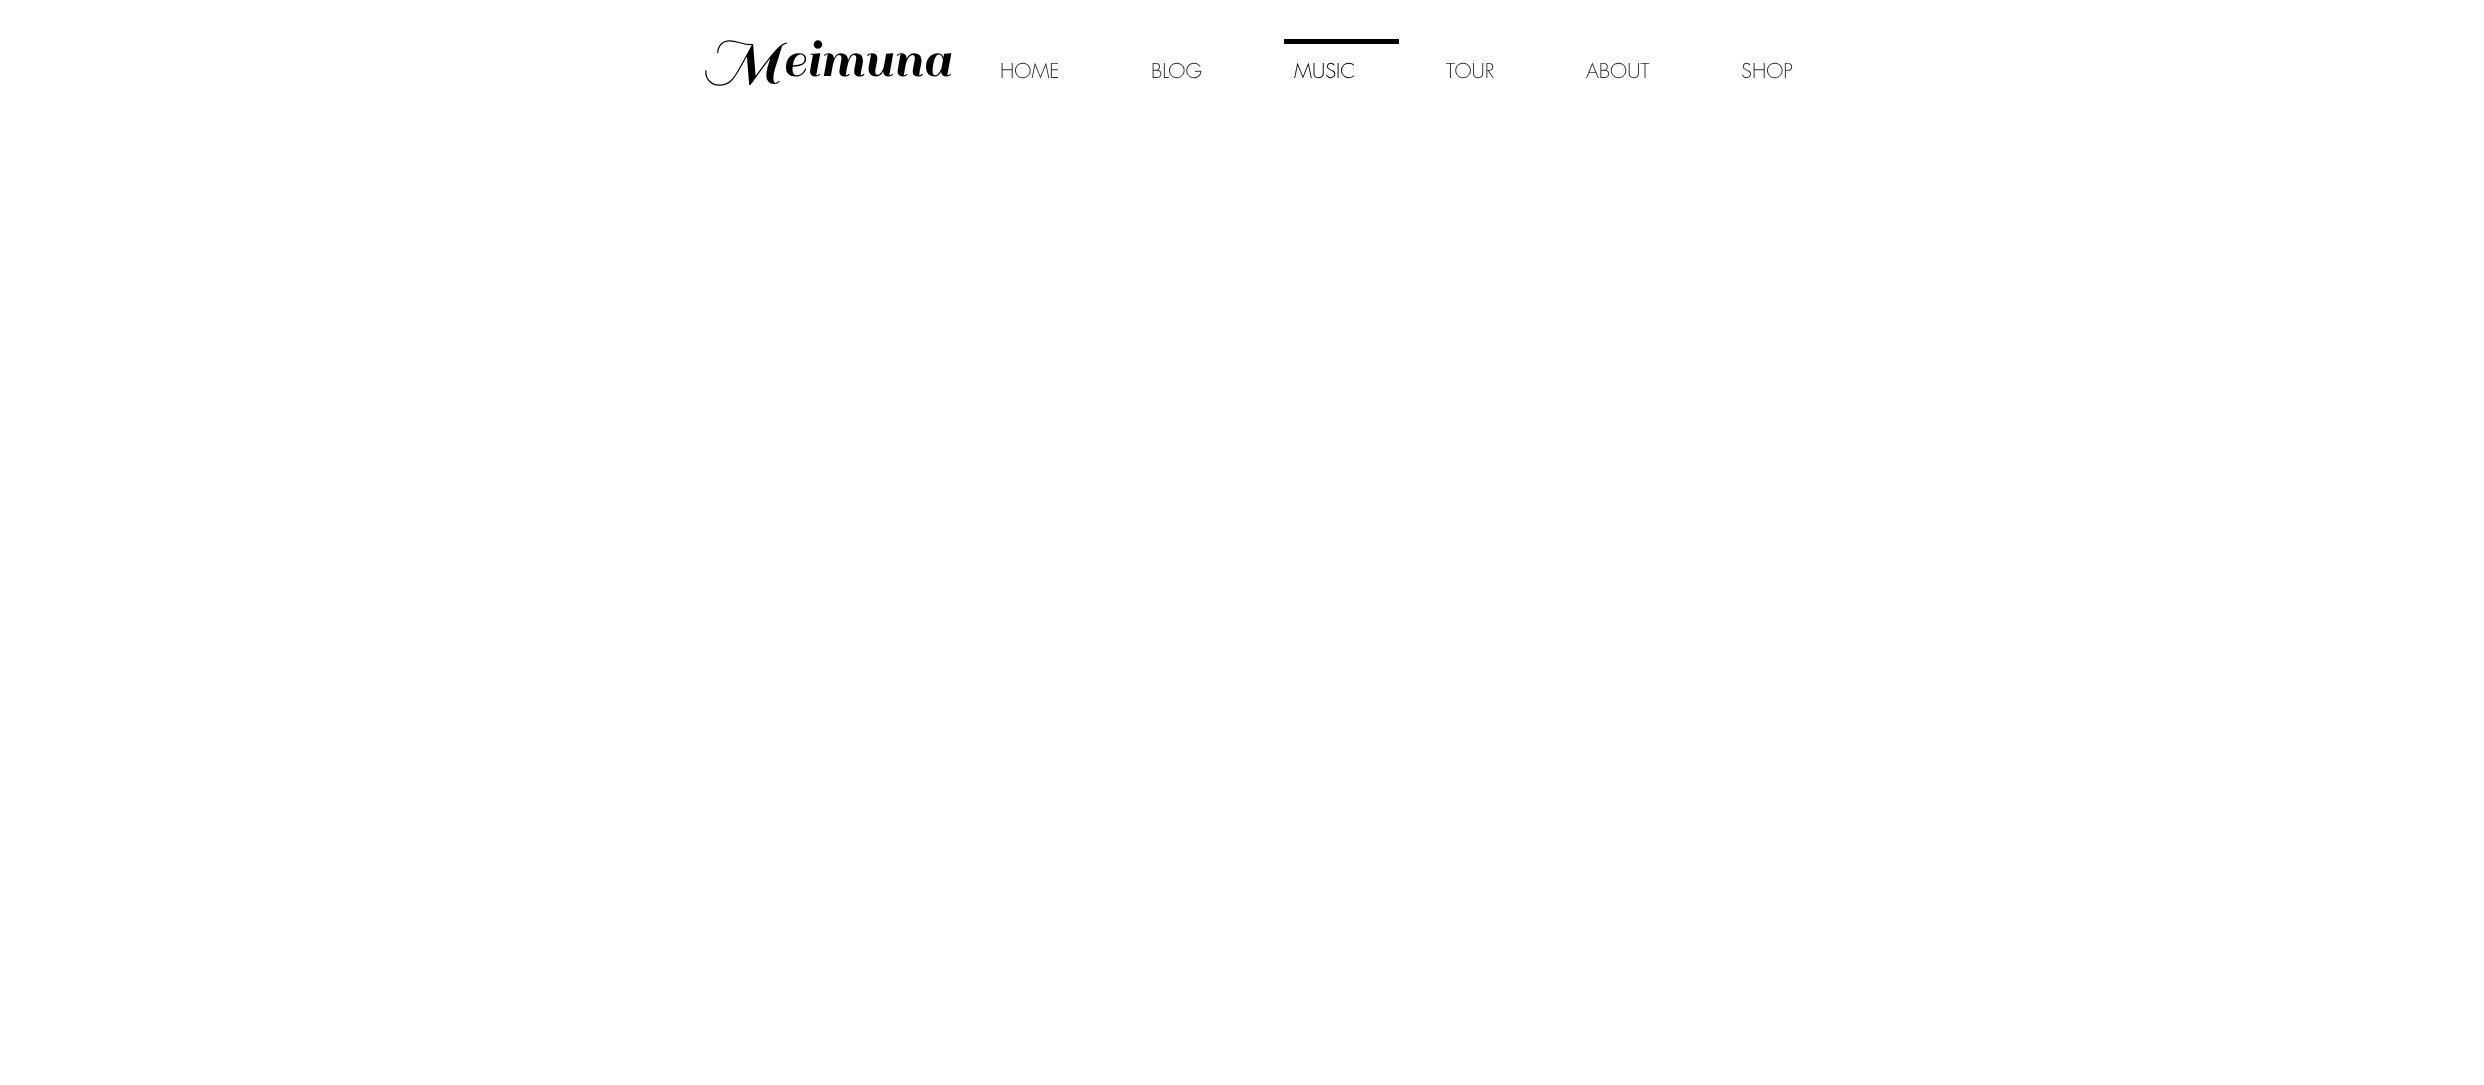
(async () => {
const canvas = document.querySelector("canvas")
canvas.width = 2484
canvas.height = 1085
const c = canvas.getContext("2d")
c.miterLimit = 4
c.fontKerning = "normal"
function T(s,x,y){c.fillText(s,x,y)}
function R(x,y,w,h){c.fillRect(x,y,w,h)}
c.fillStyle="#fff"
R(0,0,2484,1085)
c.font="58.75px Sail"
c.fillStyle="#000"
T("Meimuna",704,76)
c.font="300 20px futura"
c.fillStyle="#2f2f30"
T("HOME",1000,78)
T("BLOG",1151,78)
c.fillStyle="#000"
R(1284,39,115,5)
T("MUSIC",1294,78)
c.fillStyle="#2f2f30"
T("TOUR",1446,78)
T("ABOUT",1586,78)
T("SHOP",1741,78)
})()
